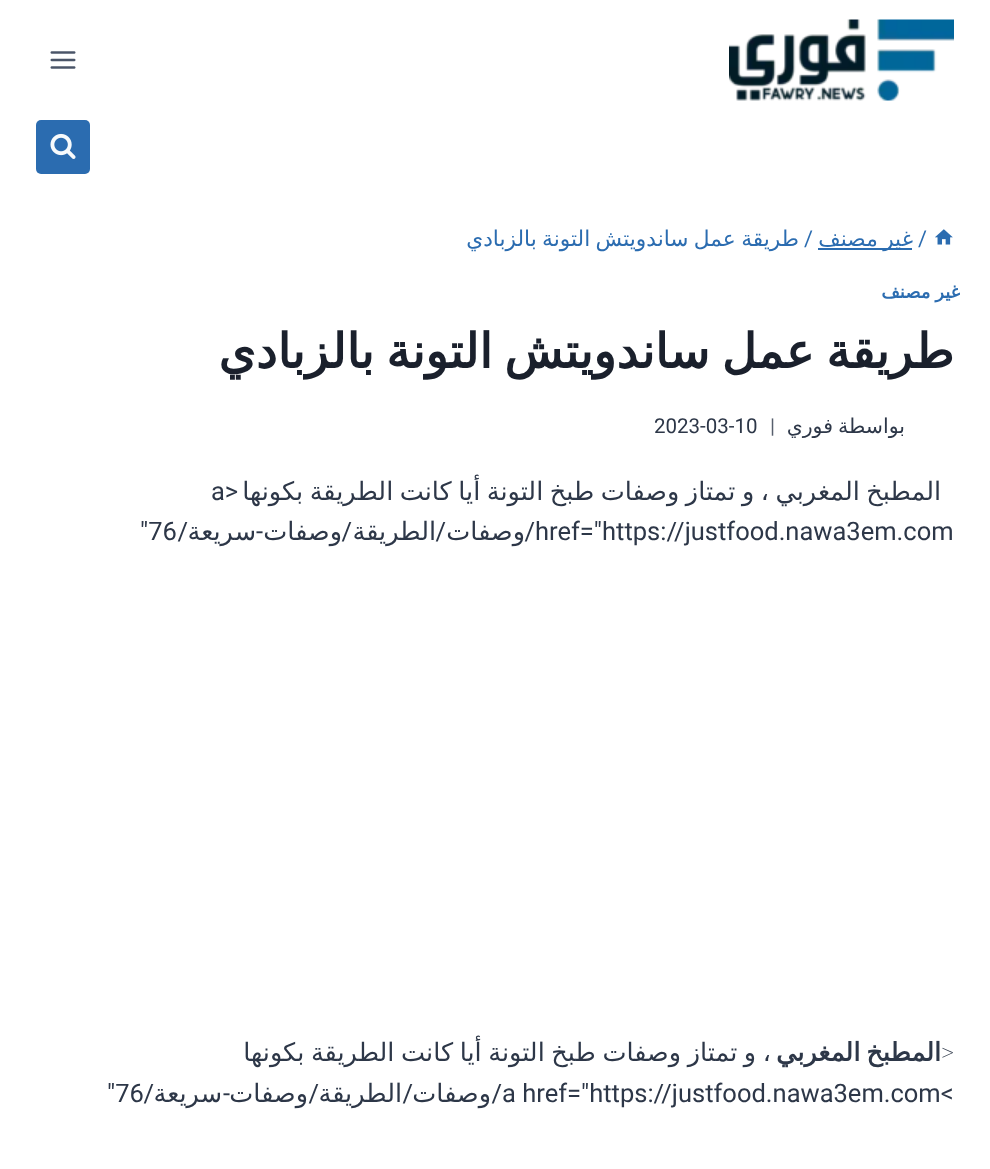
(async () => {
const canvas = document.querySelector("canvas")
canvas.width = 990
canvas.height = 1169
const c = canvas.getContext("2d")
c.miterLimit = 4
c.fontKerning = "normal"
function T(s,x,y){c.fillText(s,x,y)}
function R(x,y,w,h){c.fillRect(x,y,w,h)}
function Q(x,y,w,h,r){c.beginPath();c.roundRect(x,y,w,h,r);c.fill()}
async function I(src,x,y,w,h){const img=new Image();img.src=src;await img.decode();c.drawImage(img,x,y,w,h)}
c.fillStyle="#fff"
R(0,0,990,1169)
await I("1.png",729,19,225,82)
await I("2.png",50,51,26,18)
c.fillStyle="#2b6cb0"
Q(36,120,54,54,5)
await I("3.png",50,133,26,26)
await I("4.png",935,229,18,16)
c.font="21.7px Roboto"
T("/",918,246)
R(818,248,94,2)
c.wordSpacing="-1.5px"
c.direction="rtl"
c.font="21.7px DejaVu Sans"
T("غير مصنف",913,246)
c.wordSpacing="0px"
c.direction="ltr"
c.font="21.7px Roboto"
T("/",804,246)
c.wordSpacing="-1.5px"
c.direction="rtl"
c.font="21.7px DejaVu Sans"
T("طريقة عمل ساندويتش التونة بالزبادي",799,246)
c.letterSpacing="1px"
c.wordSpacing="-2px"
c.font="bold 18px DejaVu Sans"
T("غير مصنف",960,298)
c.letterSpacing="0px"
c.wordSpacing="-3.5px"
c.font="bold 48px DejaVu Sans"
c.fillStyle="#1a202c"
T("طريقة عمل ساندويتش التونة بالزبادي",954,368)
c.wordSpacing="0px"
c.font="20.5px DejaVu Sans"
c.fillStyle="#2d3748"
T("بواسطة",905,433)
T("فوري",833,433)
c.direction="ltr"
c.font="20.5px Roboto"
c.fillStyle="#575f6d"
T("|",770,433)
c.fillStyle="#2d3748"
T("2023-03-10",654,433)
c.wordSpacing="-1.6px"
c.direction="rtl"
c.font="25.5px DejaVu Sans"
T("المطبخ المغربي ، و تمتاز وصفات طبخ التونة أيا كانت الطريقة بكونها",941,500)
c.wordSpacing="0px"
c.font="25.5px Roboto"
T("<",238,500)
c.direction="ltr"
T("a",211,500)
T("href=\"https://justfood.nawa3em.com",535,540)
c.direction="rtl"
T("/",535,540)
c.font="25.5px DejaVu Sans"
T("وصفات",525,540)
c.font="25.5px Roboto"
T("/",446,540)
c.font="25.5px DejaVu Sans"
T("الطريقة",436,540)
c.font="25.5px Roboto"
T("/",352,540)
c.font="25.5px DejaVu Sans"
T("وصفات",342,540)
c.font="25.5px Roboto"
T("-",263,540)
c.font="25.5px DejaVu Sans"
T("سريعة",256,540)
c.font="25.5px Roboto"
T("/",188,540)
c.direction="ltr"
T("\"76",140,540)
c.font="100 25.5px Roboto"
T(">",941,1061)
c.wordSpacing="-2px"
c.direction="rtl"
c.font="bold 25.5px DejaVu Sans"
T("المطبخ المغربي",941,1061)
c.wordSpacing="-1.5px"
c.font="25.5px DejaVu Sans"
T("، و تمتاز وصفات طبخ التونة أيا كانت الطريقة بكونها",771,1061)
c.wordSpacing="0px"
c.direction="ltr"
c.font="25.5px Roboto"
T("a href=\"https://justfood.nawa3em.com<",502,1102)
c.direction="rtl"
T("/",502,1102)
c.font="25.5px DejaVu Sans"
T("وصفات",491,1102)
c.font="25.5px Roboto"
T("/",413,1102)
c.font="25.5px DejaVu Sans"
T("الطريقة",402,1102)
c.font="25.5px Roboto"
T("/",319,1102)
c.font="25.5px DejaVu Sans"
T("وصفات",308,1102)
c.font="25.5px Roboto"
T("-",230,1102)
c.font="25.5px DejaVu Sans"
T("سريعة",222,1102)
c.font="25.5px Roboto"
T("/",154,1102)
c.direction="ltr"
T("\"76",107,1102)
})()
